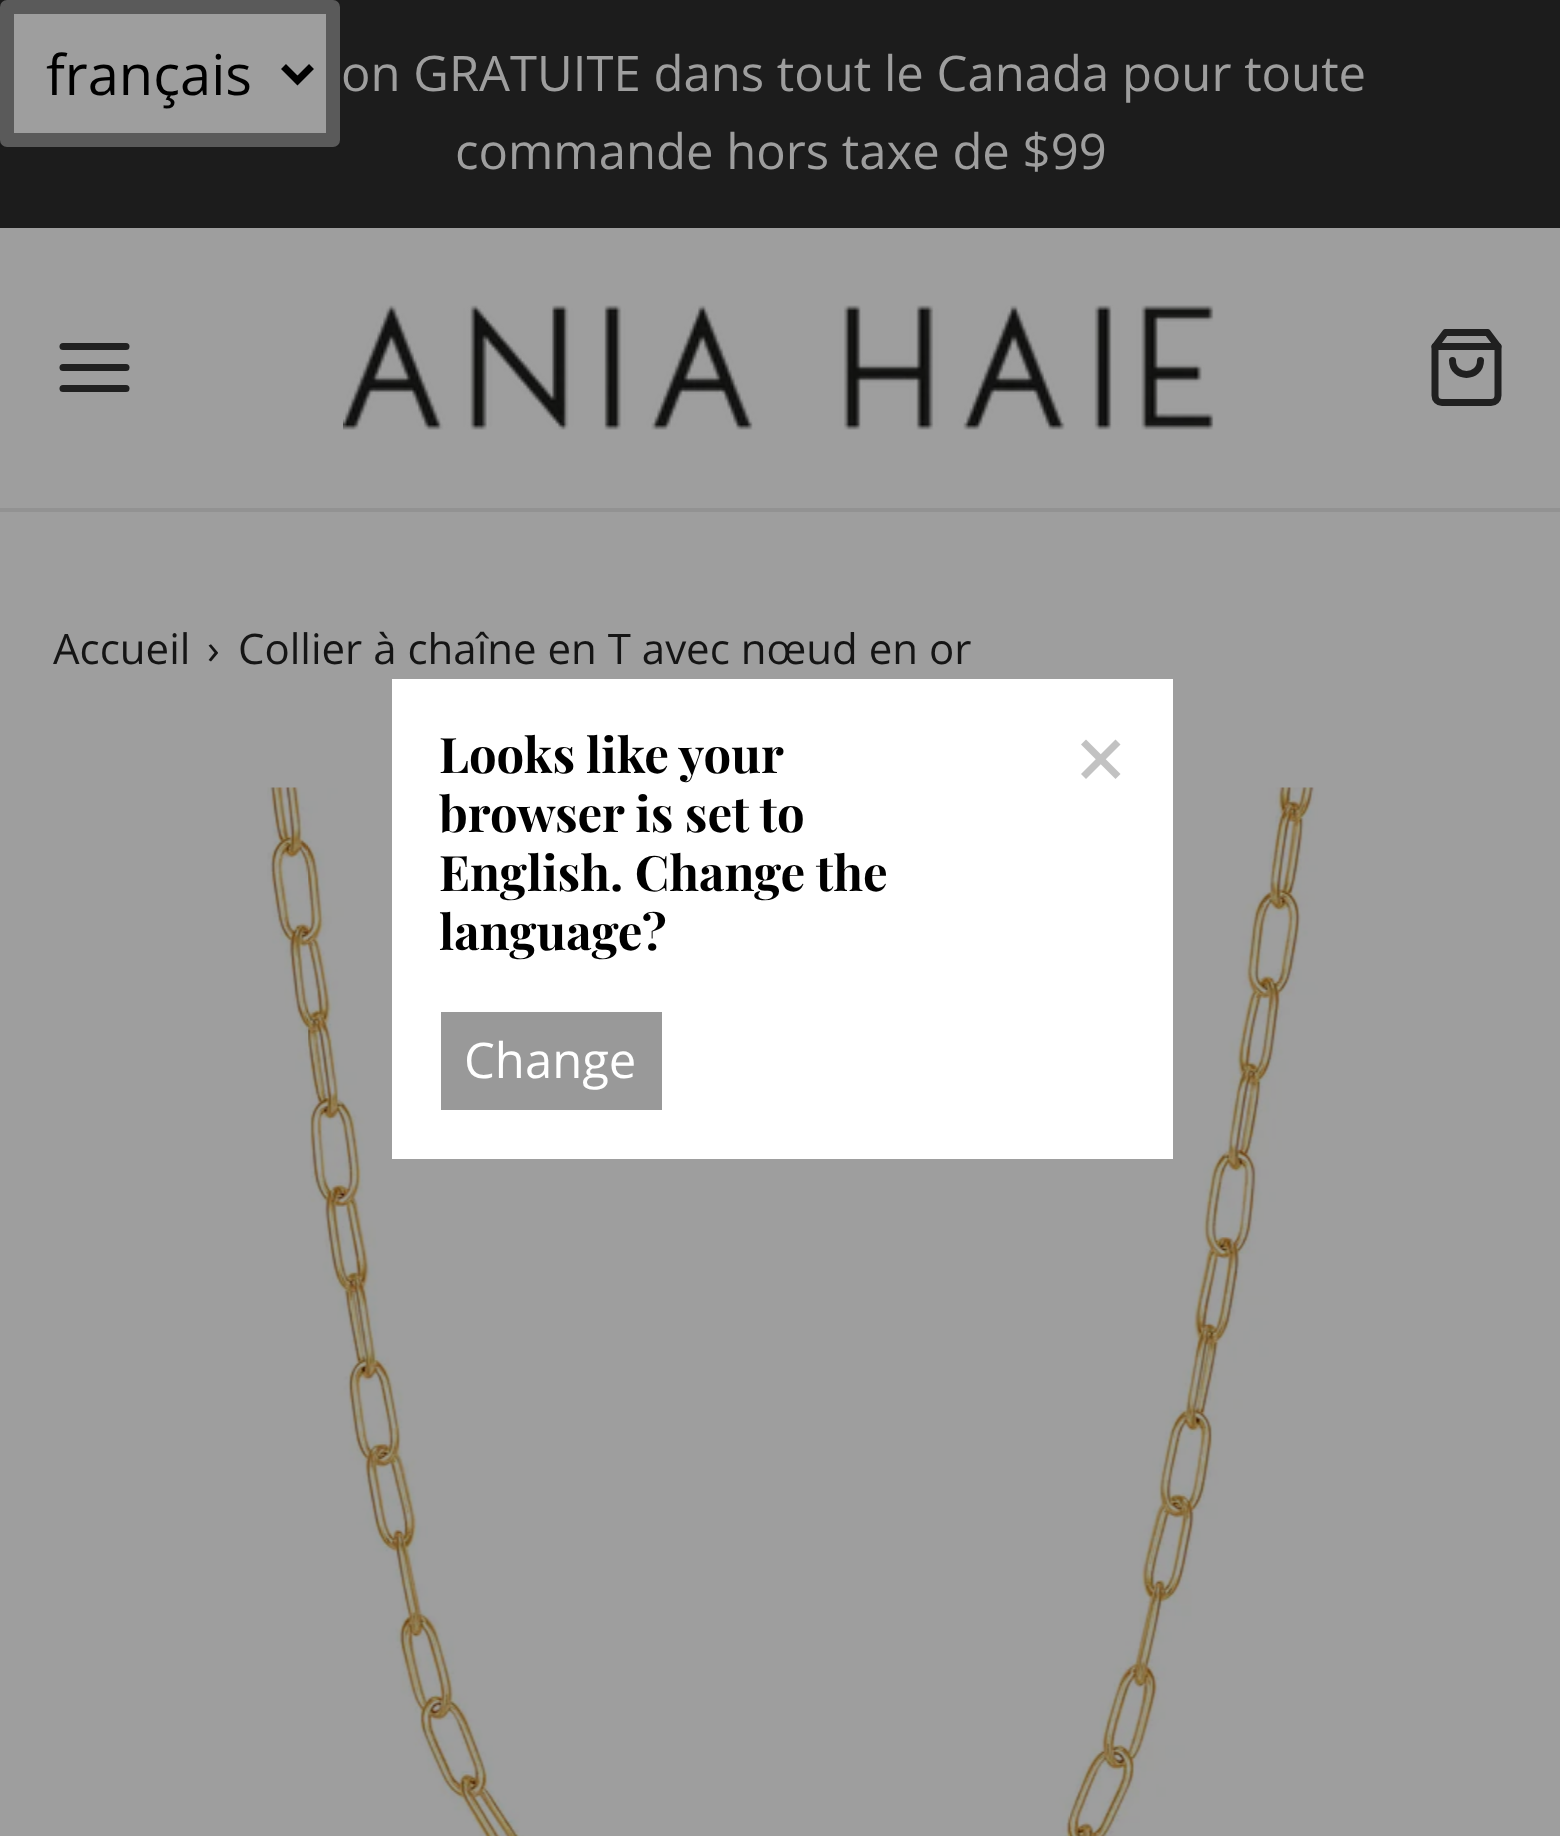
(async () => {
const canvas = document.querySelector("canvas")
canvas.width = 1560
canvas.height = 1836
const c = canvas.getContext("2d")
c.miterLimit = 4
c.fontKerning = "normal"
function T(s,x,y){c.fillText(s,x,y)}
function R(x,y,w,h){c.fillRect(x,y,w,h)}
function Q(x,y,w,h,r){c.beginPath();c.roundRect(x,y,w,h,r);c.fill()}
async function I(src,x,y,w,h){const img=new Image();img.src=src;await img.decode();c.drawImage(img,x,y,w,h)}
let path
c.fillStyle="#9e9e9e"
R(0,0,1560,1836)
c.fillStyle="#1c1c1c"
R(0,0,1560,228)
c.fillStyle="#9e9e9e"
Q(0,0,340,147,7)
c.beginPath()
c.rect(7,7,326,133)
c.strokeStyle="#15151580"
c.lineWidth=14
c.stroke()
path = new Path2D("M283.5 66.5l14 14l14-14")
c.strokeStyle="#000"
c.lineWidth=7
c.stroke(path)
c.font="56px Open Sans"
c.fillStyle="#000"
T("français",46,95)
c.font="49px Open Sans"
c.fillStyle="#9e9e9e"
T("on GRATUITE dans tout le Canada pour toute",341,91)
T("commande hors taxe de $99",455,169)
c.fillStyle="#929292"
R(0,508,1560,4)
path = new Path2D("M63 346.5h63")
c.strokeStyle="#202020"
c.lineCap="round"
c.lineJoin="round"
c.stroke(path)
path = new Path2D("M63 367.5h63")
c.stroke(path)
path = new Path2D("M63 388.5h63")
c.stroke(path)
await I("1.png",343,305,871,125)
path = new Path2D("M1445.5 332.5l-10.5 14v49c0 4 3 7 7 7h49c4 0 7-3 7-7v-49l-10.5-14z")
c.stroke(path)
path = new Path2D("M1435 346.5h63")
c.stroke(path)
path = new Path2D("M1480.5 360.5c0 18.5-28 18.5-28 0")
c.stroke(path)
c.font="42px Open Sans"
c.fillStyle="#151515"
T("Accueil",53,664)
T("›",207,664)
T("Collier à chaîne en T avec nœud en or",238,664)
await I("2.png",267,787,1051,1049)
c.fillStyle="#fff"
R(392,679,781,480)
c.font="bold 49px Playfair Display"
c.fillStyle="#000"
T("Looks like your",439,773)
T("browser is set to",439,832)
T("English. Change the",439,891)
T("language?",439,950)
c.fillStyle="#c2c2c2"
path = new Path2D("M1115.5 739.5l5 5l-34.5 34.5l-5-5z")
c.fill(path)
path = new Path2D("M1081 744.5l5-5l34.5 34.5l-5 5z")
c.fill(path)
c.fillStyle="#999"
R(441,1012,221,98)
c.font="49px Open Sans"
c.fillStyle="#fff"
T("Change",464,1078)
})()
